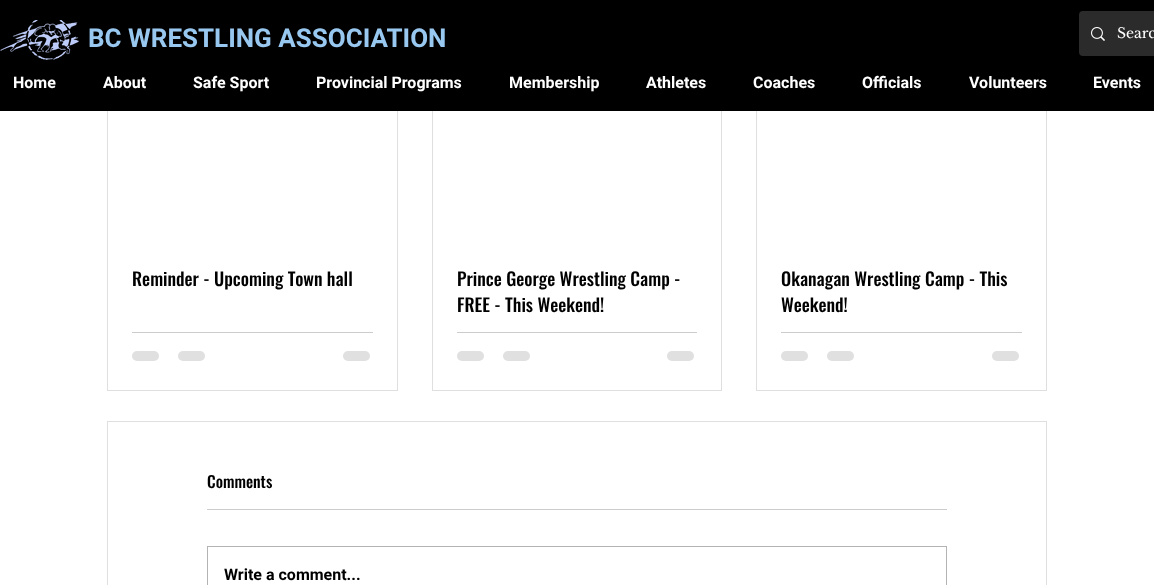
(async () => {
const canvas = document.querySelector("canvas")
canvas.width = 1154
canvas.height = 585
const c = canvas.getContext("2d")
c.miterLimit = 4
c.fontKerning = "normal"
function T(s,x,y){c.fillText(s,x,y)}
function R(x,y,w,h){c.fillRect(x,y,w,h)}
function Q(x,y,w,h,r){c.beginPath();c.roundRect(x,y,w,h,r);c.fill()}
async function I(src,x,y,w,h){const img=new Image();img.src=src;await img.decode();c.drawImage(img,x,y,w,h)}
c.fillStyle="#fff"
R(0,0,1154,585)
c.strokeStyle="#e0dfdf"
c.strokeRect(107.5,77.5,290,313)
c.strokeRect(432.5,77.5,289,313)
c.strokeRect(756.5,77.5,290,313)
c.fillStyle="#000"
R(0,0,1154,111)
await I("1.png",0,20,79,40)
c.font="bold 26px Roboto"
c.fillStyle="#98c8f0"
T("BC WRESTLING ASSOCIATION",88,47)
c.fillStyle="#2b2b2b"
Q(1079,11,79,45,4)
await I("2.png",1091,27,14,14)
c.font="14px Libre Baskerville"
c.fillStyle="#fff"
T("Searc",1117,38)
c.font="bold 16px Roboto"
T("Home",13,88)
T("About",103,88)
T("Safe Sport",193,88)
T("Provincial Programs",316,88)
T("Membership",509,88)
T("Athletes",646,88)
T("Coaches",753,88)
T("Officials",862,88)
T("Volunteers",969,88)
T("Events",1093,88)
c.font="500 18px Oswald"
c.fillStyle="#000"
T("Reminder - Upcoming Town hall",132,286)
c.fillStyle="#ccc"
R(132,332,241,1)
c.fillStyle="#e0e0e0"
Q(132,351,27,10,5)
Q(178,351,27,10,5)
Q(343,351,27,10,5)
c.fillStyle="#000"
T("Prince George Wrestling Camp -",457,286)
T("FREE - This Weekend!",457,312)
c.fillStyle="#ccc"
R(457,332,240,1)
c.fillStyle="#e0e0e0"
Q(457,351,27,10,5)
Q(503,351,27,10,5)
Q(667,351,27,10,5)
c.fillStyle="#000"
T("Okanagan Wrestling Camp - This",781,286)
T("Weekend!",781,312)
c.fillStyle="#ccc"
R(781,332,241,1)
c.fillStyle="#e0e0e0"
Q(781,351,27,10,5)
Q(827,351,27,10,5)
Q(992,351,27,10,5)
c.strokeRect(107.5,421.5,939,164)
c.font="500 16px Oswald"
c.fillStyle="#000"
T("Comments",207,488)
c.fillStyle="#ccc"
R(207,509,740,1)
c.strokeStyle="#b3b3b3"
c.strokeRect(207.5,546.5,739,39)
c.font="bold 16px Roboto"
c.fillStyle="#000"
T("Write a comment...",224,580)
})()
